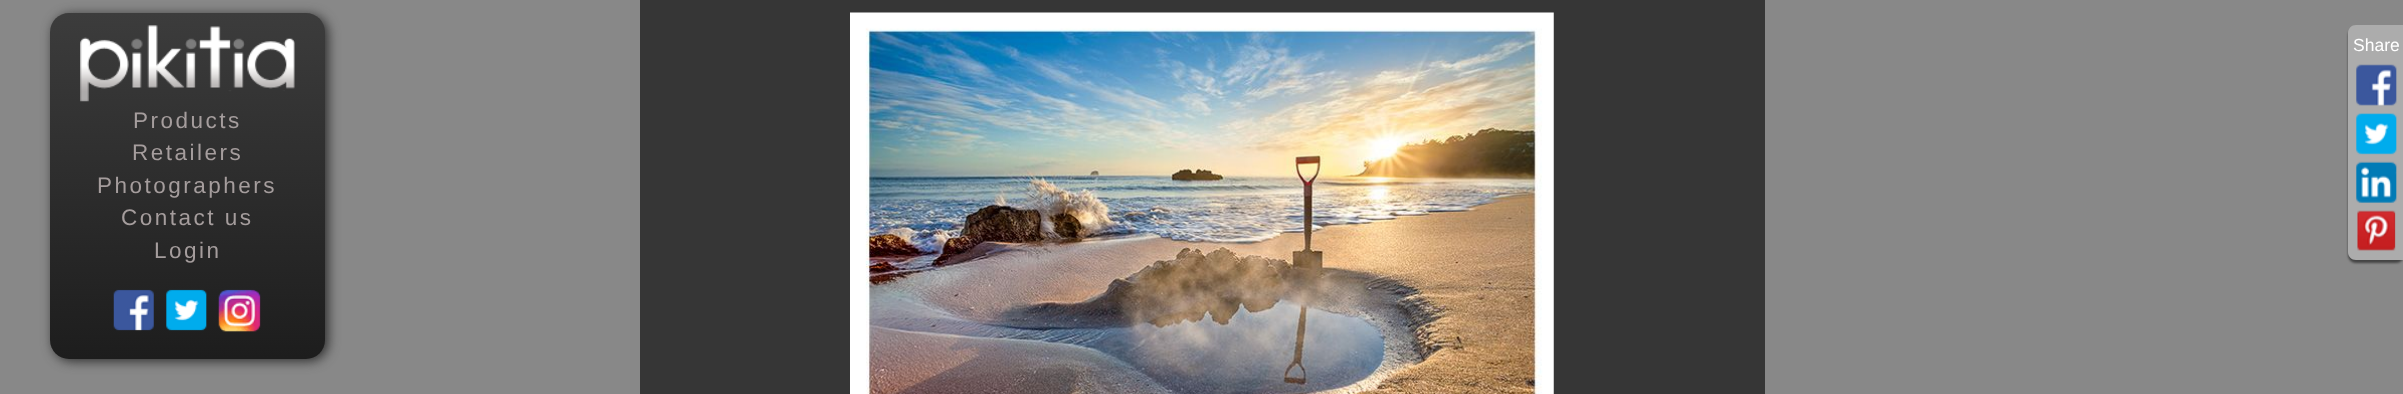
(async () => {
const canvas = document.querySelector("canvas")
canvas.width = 2403
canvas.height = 394
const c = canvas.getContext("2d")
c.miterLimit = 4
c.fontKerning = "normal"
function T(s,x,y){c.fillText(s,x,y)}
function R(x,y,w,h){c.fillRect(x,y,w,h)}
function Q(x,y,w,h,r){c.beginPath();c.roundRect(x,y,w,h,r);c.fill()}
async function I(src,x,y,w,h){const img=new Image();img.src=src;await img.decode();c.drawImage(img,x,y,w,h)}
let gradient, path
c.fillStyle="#888"
R(0,0,2403,394)
c.fillStyle="#363636"
R(640,0,1125,394)
await I("1.png",850,12,704,382)
c.save()
path = new Path2D("M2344 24h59v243h-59zm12 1h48v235h-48c-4.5 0-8-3.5-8-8v-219c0-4.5 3.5-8 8-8z")
c.clip(path,"evenodd")
c.fillStyle="#00000080"
c.filter="blur(1px)"
c.beginPath()
c.roundRect(2348,28,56,235,8)
c.fill()
c.filter="none"
c.restore()
c.fillStyle="#ffffff4d"
path = new Path2D("M2356 25h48v235h-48c-4.5 0-8-3.5-8-8v-219c0-4.5 3.5-8 8-8z")
c.fill(path)
c.font="17.5px Liberation Sans"
c.fillStyle="#fff"
T("Share",2353,51)
await I("2.png",2356,64,41,42)
await I("3.png",2356,113,41,42)
await I("4.png",2356,161,41,42)
await I("5.png",2357,210,39,41)
c.fillStyle="#2c2c2c"
c.filter="blur(6px)"
c.beginPath()
c.roundRect(53,15,275,346,19)
c.fill()
c.filter="none"
gradient = c.createLinearGradient(187,13,188,359)
gradient.addColorStop(0,"#3c3c3c")
gradient.addColorStop(1,"#1d1d1d")
c.fillStyle = gradient
Q(50,13,275,346,19)
await I("6.png",80,25,215,77)
c.letterSpacing="2.5px"
c.font="22.5px Liberation Sans"
c.fillStyle="#a59d9d"
T("Products",133,128)
T("Retailers",132,160)
T("Photographers",97,193)
T("Contact us",121,225)
T("Login",154,258)
await I("7.png",113,289,41,42)
await I("8.png",166,289,41,42)
await I("9.png",218,289,43,43)
})()
